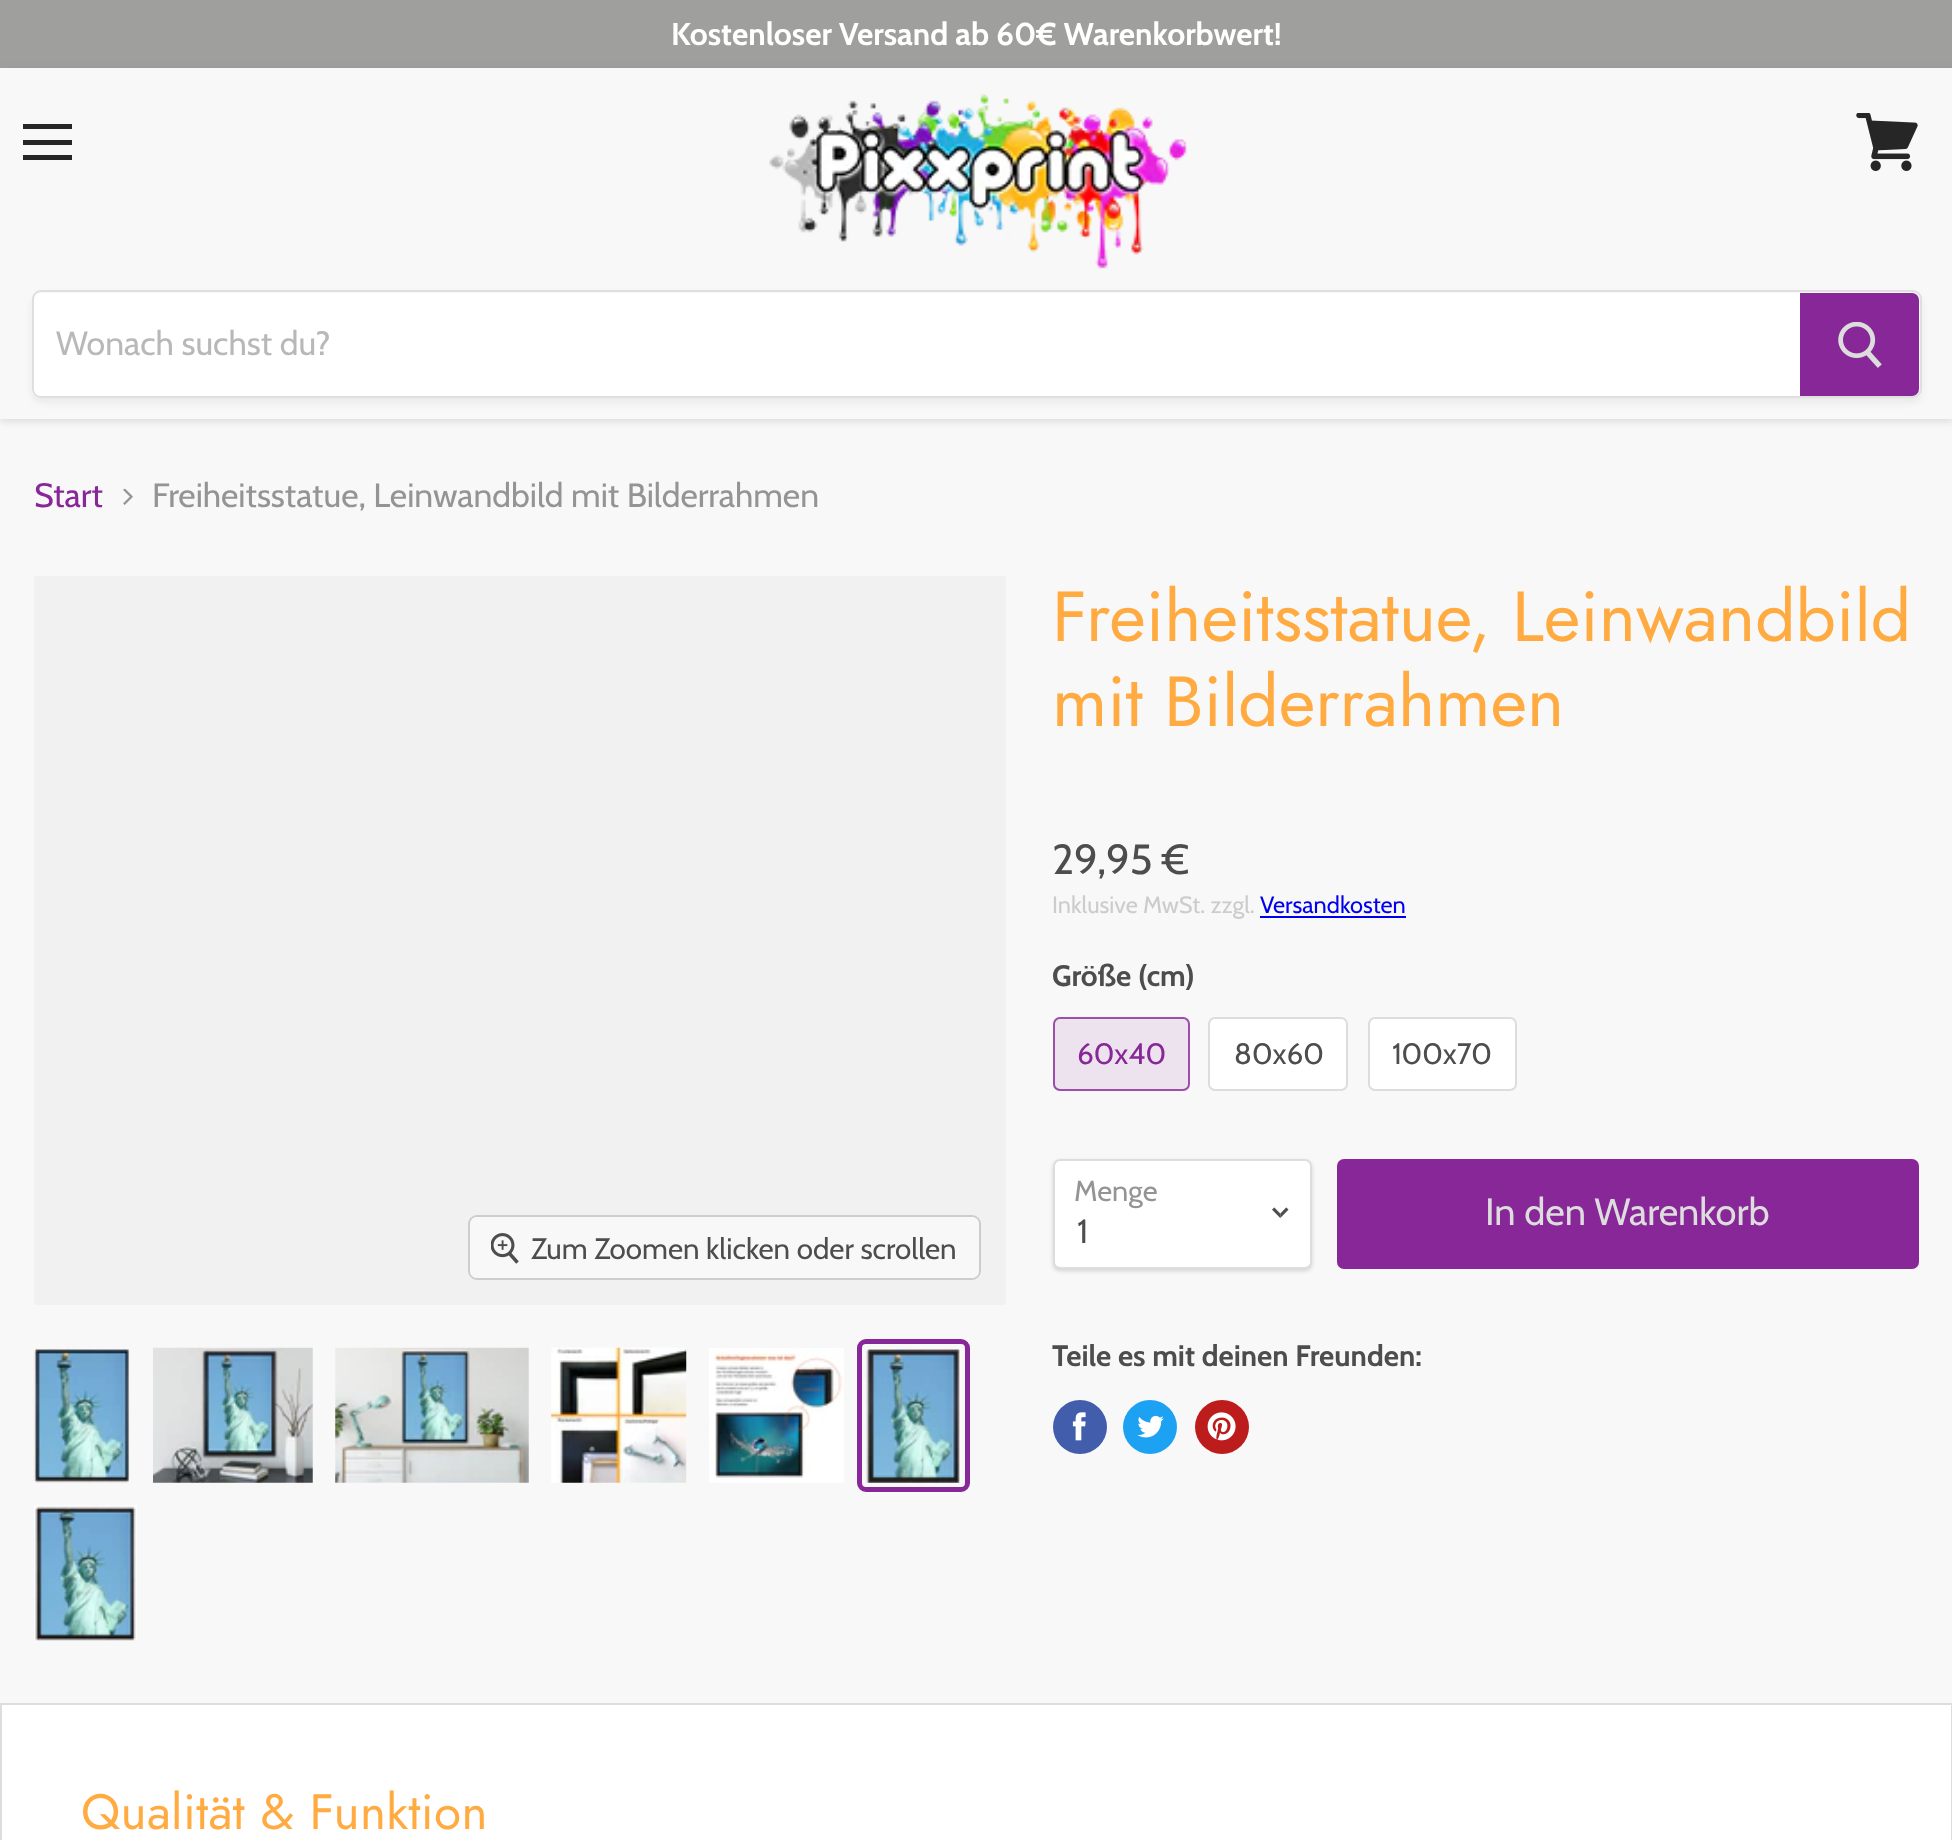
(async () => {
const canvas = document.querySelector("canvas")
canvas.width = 1952
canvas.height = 1840
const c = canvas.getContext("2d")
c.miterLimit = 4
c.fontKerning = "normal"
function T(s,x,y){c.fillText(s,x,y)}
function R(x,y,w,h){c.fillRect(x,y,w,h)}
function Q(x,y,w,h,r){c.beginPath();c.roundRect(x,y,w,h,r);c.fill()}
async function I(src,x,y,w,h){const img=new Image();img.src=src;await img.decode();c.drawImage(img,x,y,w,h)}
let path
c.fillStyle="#f8f8f8"
R(0,0,1952,1840)
c.fillStyle="#9f9f9e"
R(0,0,1952,68)
c.font="bold 31.6px Cabin"
c.fillStyle="#fff"
T("Kostenloser Versand ab 60€ Warenkorbwert!",671,45)
c.fillStyle="#7c7c7c40"
c.filter="blur(4.5px)"
c.beginPath()
c.rect(0,70,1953,351)
c.fill()
c.filter="none"
c.fillStyle="#f8f8f8"
R(0,68,1952,351)
c.fillStyle="#262626"
R(23,124,49,5)
R(23,140,49,5)
R(23,155,49,5)
await I("1.png",1856,113,62,58)
await I("2.png",769,94,418,175)
c.save()
path = new Path2D("M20 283h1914v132h-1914zm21 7h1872c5 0 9 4 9 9v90c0 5-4 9-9 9h-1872c-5 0-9-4-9-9v-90c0-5 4-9 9-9z")
c.clip(path,"evenodd")
c.fillStyle="#7c7c7c1c"
c.filter="blur(3.5px)"
c.beginPath()
c.roundRect(32,295,1890,108,9)
c.fill()
c.filter="none"
c.restore()
c.beginPath()
c.roundRect(33,291,1888,106,8)
c.strokeStyle="#7c7c7c33"
c.lineWidth=2
c.stroke()
c.fillStyle="#fff"
c.beginPath()
c.roundRect(34,293,1766,103,[7,0,0,7])
c.fill()
c.font="33.75px Cabin"
c.fillStyle="#b8b8b8"
T("Wonach suchst du?",56,355)
c.fillStyle="#882798"
c.beginPath()
c.roundRect(1801,294,117,101,[0,6,6,0])
c.fill()
c.strokeStyle="#882798"
c.stroke()
await I("3.png",1838,322,44,46)
T("Start",34,507)
await I("4.png",123,488,10,17)
c.fillStyle="#949494"
T("Freiheitsstatue, Leinwandbild mit Bilderrahmen",152,507)
c.fillStyle="#f1f1f1"
R(34,576,972,729)
c.beginPath()
c.roundRect(469,1216,511,63,8)
c.strokeStyle="#cdcdcd"
c.stroke()
c.fillStyle="#f8f8f8e6"
Q(470,1217,509,61,7)
await I("5.png",491,1233,28,31)
c.font="29.5px Cabin"
c.fillStyle="#4d4d4d"
T("Zum Zoomen klicken oder scrollen",531,1259)
await I("6.png",33,1348,97,135)
await I("7.png",153,1347,160,136)
await I("8.png",335,1347,194,136)
await I("9.png",551,1347,136,136)
await I("10.png",709,1348,135,135)
c.beginPath()
c.roundRect(859.5,1341.5,108,148,6.5)
c.strokeStyle="#882798"
c.lineWidth=5
c.stroke()
await I("11.png",866,1348,95,135)
await I("12.png",34,1505,103,136)
c.font="70.9px Jost"
c.fillStyle="#ffab41"
T("Freiheitsstatue, Leinwandbild",1052,641)
T("mit Bilderrahmen",1052,726)
c.font="42px Cabin"
c.fillStyle="#4d4d4d"
T("29,95 €",1052,874)
c.font="23.6px Cabin"
c.fillStyle="#ccc"
T("Inklusive MwSt. zzgl.",1052,913)
c.fillStyle="#00e"
T("Versandkosten",1260,913)
R(1260,916,146,2)
c.font="bold 29.5px Cabin"
c.fillStyle="#4d4d4d"
T("Größe (cm)",1052,986)
c.fillStyle="#ede3ee"
Q(1053,1017,137,74,7)
c.beginPath()
c.roundRect(1054,1018,135,72,6)
c.strokeStyle="#882798cc"
c.lineWidth=2
c.stroke()
c.font="29.5px Cabin"
c.fillStyle="#882798"
T("60x40",1077,1064)
c.fillStyle="#fff"
c.beginPath()
c.roundRect(1209,1018,138,72,6)
c.fill()
c.strokeStyle="#ddd"
c.stroke()
c.fillStyle="#4d4d4d"
T("80x60",1234,1064)
c.fillStyle="#fff"
c.beginPath()
c.roundRect(1369,1018,147,72,6)
c.fill()
c.stroke()
c.fillStyle="#4d4d4d"
T("100x70",1392,1064)
c.fillStyle="#00000026"
c.filter="blur(2px)"
c.beginPath()
c.roundRect(1053,1161,259,110,7)
c.fill()
c.filter="none"
c.fillStyle="#fff"
c.beginPath()
c.roundRect(1054,1160,257,108,6)
c.fill()
c.stroke()
c.font="29px Cabin"
c.fillStyle="#949494"
T("Menge",1074,1201)
await I("13.png",1272,1207,17,11)
c.font="33.75px Cabin"
c.fillStyle="#4d4d4d"
T("1",1077,1243)
c.fillStyle="#882798"
c.beginPath()
c.roundRect(1338,1160,580,108,6)
c.fill()
c.strokeStyle="#882798"
c.stroke()
c.font="38px Cabin"
c.fillStyle="#ddd"
T("In den Warenkorb",1485,1225)
c.font="bold 29.5px Cabin"
c.fillStyle="#4d4d4d"
T("Teile es mit deinen Freunden:",1052,1366)
c.fillStyle="#425dab"
c.beginPath()
c.arc(1080,1427,27,0,7)
c.fill()
await I("14.png",1072,1412,14,29)
c.fillStyle="#1da1f2"
c.beginPath()
c.arc(1150,1427,27,0,7)
c.fill()
await I("15.png",1137,1415,27,23)
c.fillStyle="#bd1c1c"
c.beginPath()
c.arc(1222,1427,27,0,7)
c.fill()
await I("16.png",1207,1412,29,29)
c.fillStyle="#fff"
c.beginPath()
c.rect(1,1704,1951,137)
c.fill()
c.strokeStyle="#ddd"
c.stroke()
c.letterSpacing="0.4px"
c.font="49.5px Jost"
c.fillStyle="#ffab41"
T("Qualität & Funktion",81,1829)
})()
